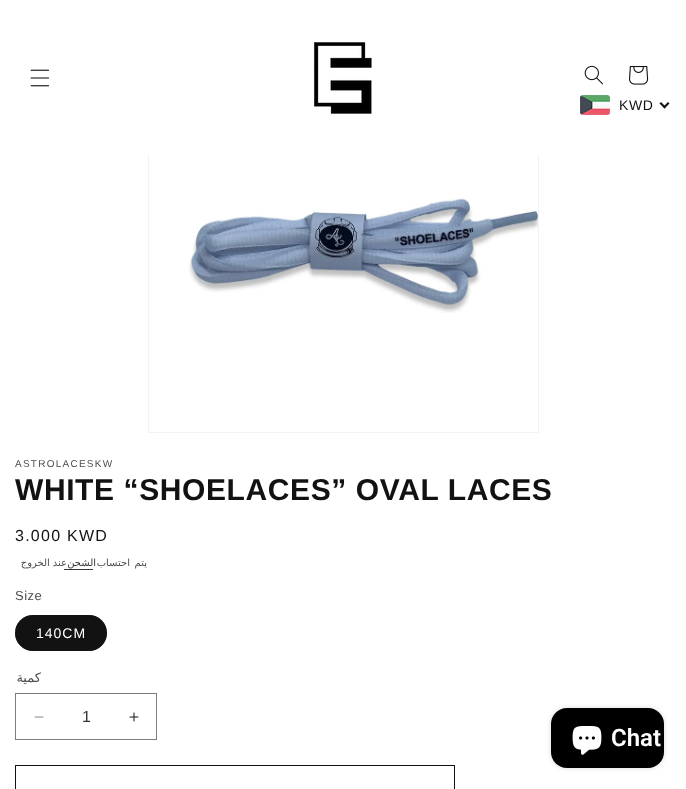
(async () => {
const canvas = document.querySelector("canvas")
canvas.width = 686
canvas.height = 789
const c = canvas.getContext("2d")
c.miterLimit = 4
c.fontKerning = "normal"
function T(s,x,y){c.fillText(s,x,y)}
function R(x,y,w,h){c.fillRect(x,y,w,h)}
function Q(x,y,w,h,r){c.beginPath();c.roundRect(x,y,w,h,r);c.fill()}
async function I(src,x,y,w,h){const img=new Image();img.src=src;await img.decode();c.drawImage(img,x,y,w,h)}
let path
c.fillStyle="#fff"
R(0,0,686,789)
c.strokeStyle="#f3f3f3"
c.strokeRect(148.5,42.5,390,390)
R(148,42,391,113)
await I("1.png",30,69,20,18)
await I("2.png",313,41,59,73)
await I("3.png",584,65,19,20)
await I("4.png",629,66,20,19)
await I("5.png",580,95,30,20)
c.letterSpacing="0.6px"
c.font="14px Liberation Sans"
c.fillStyle="#121212"
T("KWD",619,110)
path = new Path2D("M668 102l1.5 1.5l-5 5l-1.5-1.5z")
c.fill(path)
path = new Path2D("M661 102l5 5l-1.5 1.5l-5-5z")
c.fill(path)
await I("6.png",189,198,349,115)
c.letterSpacing="1.25px"
c.font="10px Liberation Sans"
c.fillStyle="#4d4d4d"
T("ASTROLACESKW",15,467)
c.letterSpacing="0.6px"
c.font="bold 30px Liberation Sans"
c.fillStyle="#121212"
T("WHITE “SHOELACES” OVAL LACES",15,500)
c.letterSpacing="1.25px"
c.font="16px Liberation Sans"
T("3.000 KWD",15,541)
c.letterSpacing="0.75px"
c.direction="rtl"
c.font="10px DejaVu Sans"
c.fillStyle="#4d4d4d"
T("احتساب",130,566)
c.fillStyle="#353535"
T("الشحن",96,566)
c.wordSpacing="-1px"
c.fillStyle="#4d4d4d"
T("عند الخروج",67,566)
c.fillStyle="#363636"
R(64,569,29,1)
c.wordSpacing="0px"
c.fillStyle="#4d4d4d"
T("يتم",147,566)
c.direction="ltr"
c.font="10px Liberation Sans"
c.fillStyle="#353535"
T(".",144,566)
c.letterSpacing="0.5px"
c.font="13px Liberation Sans"
c.fillStyle="#4d4d4d"
T("Size",15,600)
c.fillStyle="#121212"
Q(15,615,92,36,18)
c.beginPath()
c.roundRect(15.5,615.5,91,35,17.5)
c.strokeStyle="#1212128c"
c.stroke()
c.letterSpacing="1px"
c.font="14px Liberation Sans"
c.fillStyle="#fff"
T("140CM",36,638)
c.letterSpacing="0.5px"
c.direction="rtl"
c.font="13px DejaVu Sans"
c.fillStyle="#4d4d4d"
T("كمية",41,682)
await I("7.png",34,716,10,2)
await I("8.png",129,712,10,10)
c.strokeStyle="#7d7d7d"
c.strokeRect(15.5,693.5,141,46)
c.letterSpacing="0px"
c.direction="ltr"
c.font="16px Liberation Sans"
c.fillStyle="#353535"
T("1",82,722)
c.strokeStyle="#121212"
c.strokeRect(15.5,765.5,439,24)
c.fillStyle="#00000026"
c.filter="blur(2.5px)"
c.beginPath()
c.roundRect(551,708,113,60,16)
c.fill()
c.filter="none"
c.fillStyle="#000"
Q(551,708,113,60,16)
await I("9.png",572,726,30,29)
c.font="600 24px Roboto"
c.fillStyle="#fff"
T("Chat",611,746)
})()
